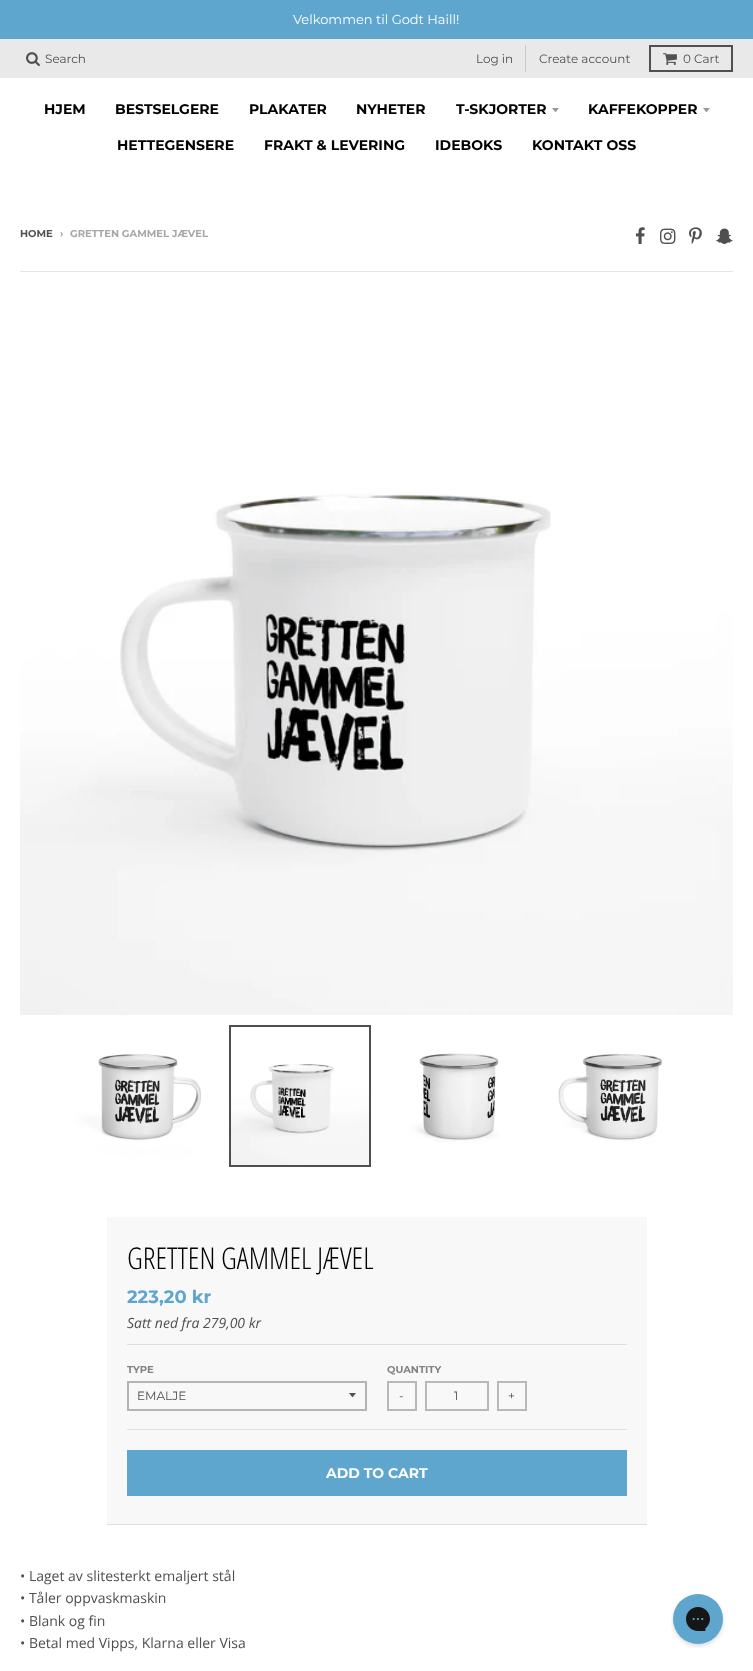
(async () => {
const canvas = document.querySelector("canvas")
canvas.width = 753
canvas.height = 1671
const c = canvas.getContext("2d")
c.miterLimit = 4
c.fontKerning = "normal"
function T(s,x,y){c.fillText(s,x,y)}
function R(x,y,w,h){c.fillRect(x,y,w,h)}
async function I(src,x,y,w,h){const img=new Image();img.src=src;await img.decode();c.drawImage(img,x,y,w,h)}
let path
c.fillStyle="#fff"
R(0,0,753,1671)
c.fillStyle="#5fa6ce"
R(0,0,753,39)
c.font="100 13px Montserrat"
c.fillStyle="#fff"
T("Velkommen til Godt Haill!",293,24)
c.fillStyle="#e9e9e9"
R(0,39,753,39)
await I("1.png",26,52,14,14)
c.font="100 12px Montserrat"
c.fillStyle="#4f4f4f"
T("Search",45,63)
c.fillStyle="#cacaca"
R(525,45,1,27)
c.fillStyle="#4f4f4f"
T("Log in",476,63)
T("Create account",539,63)
c.strokeStyle="#505050"
c.lineWidth=2
c.strokeRect(650,46,82,25)
await I("2.png",663,53,14,12)
T("0 Cart",683,63)
c.font="bold 14px Montserrat"
c.fillStyle="#000"
T("HJEM",44,114)
T("BESTSELGERE",115,114)
T("PLAKATER",249,114)
T("NYHETER",356,114)
T("T-SKJORTER",456,114)
c.fillStyle="#999"
path = new Path2D("M552 108c4.5 5.5 2.5 5.5 7 0z")
c.fill(path)
c.fillStyle="#000"
T("KAFFEKOPPER",588,114)
c.fillStyle="#999"
path = new Path2D("M703 108c4.5 5.5 2.5 5.5 7 0z")
c.fill(path)
c.fillStyle="#000"
T("HETTEGENSERE",117,150)
T("FRAKT & LEVERING",264,150)
T("IDEBOKS",435,150)
T("KONTAKT OSS",532,150)
c.font="bold 10px Montserrat"
c.fillStyle="#4f4f4f"
T("HOME",20,237)
c.fillStyle="#a7a7a7"
T("›",60,237)
T("GRETTEN GAMMEL JÆVEL",70,237)
await I("3.png",635,227,10,17)
await I("4.png",660,228,16,16)
await I("5.png",689,227,13,17)
await I("6.png",716,228,17,16)
c.fillStyle="#e5e5e5"
R(20,271,713,1)
await I("7.png",20,302,713,713)
await I("8.png",72,1027,139,138)
c.strokeStyle="#4f4f4f"
c.strokeRect(230,1026,140,140)
await I("9.png",231,1027,138,138)
await I("10.png",390,1027,138,138)
await I("11.png",548,1027,139,138)
c.fillStyle="#f8f8f8"
R(107,1217,540,307)
c.fillStyle="#dfdfdf"
R(107,1524,540,1)
c.font="300 30px Open Sans Condensed"
c.fillStyle="#000"
T("GRETTEN GAMMEL JÆVEL",127,1269)
c.fillStyle="#dfdfdf"
R(127,1344,500,1)
c.font="bold 18px Montserrat"
c.fillStyle="#5fa6ce"
T("223,20 kr",127,1303)
c.font="italic 14px Open Sans"
c.fillStyle="#4f4f4f"
T("Satt ned fra 279,00 kr",127,1328)
c.fillStyle="#dfdfdf"
R(127,1429,500,1)
c.font="bold 10px Montserrat"
c.fillStyle="#838383"
T("TYPE",127,1373)
c.fillStyle="#4f4f4f"
path = new Path2D("M349 1393c4.5 5.5 2.5 5.5 7 0z")
c.fill(path)
c.strokeStyle="#b4b4b4"
c.strokeRect(128,1382,238,28)
c.font="100 12px Montserrat"
T("EMALJE",137,1400)
c.font="bold 10px Montserrat"
c.fillStyle="#838383"
T("QUANTITY",387,1373)
c.strokeStyle="#b8b8b8"
c.strokeRect(388,1382,28,28)
c.font="100 12px Montserrat"
c.fillStyle="#4f4f4f"
T("-",399,1400)
c.strokeRect(426,1382,62,28)
T("1",454,1400)
c.strokeRect(498,1382,28,28)
T("+",508,1400)
c.fillStyle="#5fa6ce"
R(127,1450,500,46)
c.font="bold 14px Montserrat"
c.fillStyle="#fff"
T("ADD TO CART",326,1478)
c.font="14px Open Sans"
c.fillStyle="#4f4f4f"
T("• Laget av slitesterkt emaljert stål",20,1581)
T("• Tåler oppvaskmaskin",20,1603)
T("• Blank og fin",20,1626)
T("• Betal med Vipps, Klarna eller Visa",20,1648)
await I("12.png",671,1594,54,54)
})()
